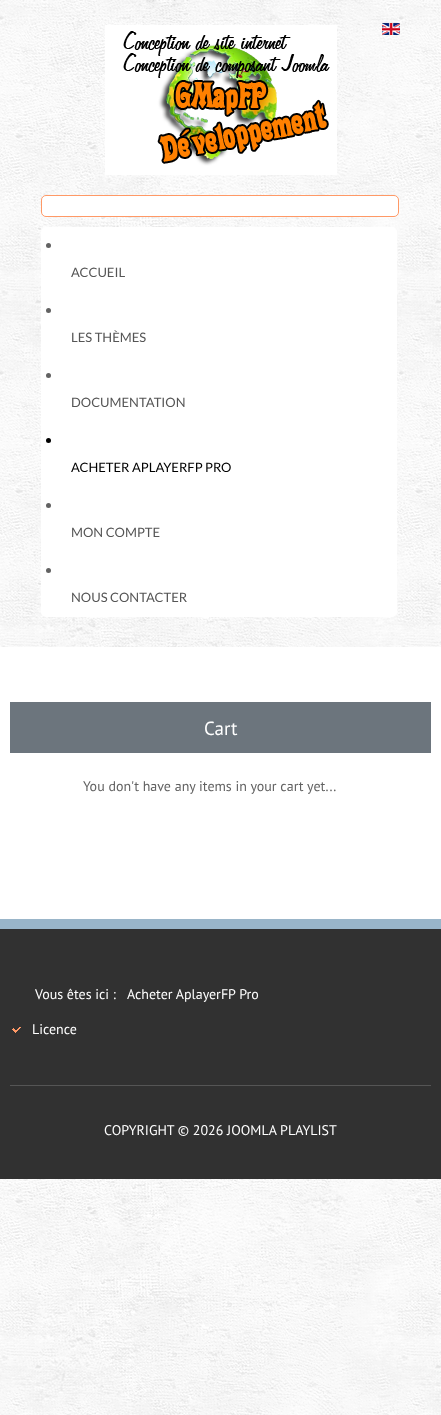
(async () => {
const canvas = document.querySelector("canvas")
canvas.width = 441
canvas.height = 1415
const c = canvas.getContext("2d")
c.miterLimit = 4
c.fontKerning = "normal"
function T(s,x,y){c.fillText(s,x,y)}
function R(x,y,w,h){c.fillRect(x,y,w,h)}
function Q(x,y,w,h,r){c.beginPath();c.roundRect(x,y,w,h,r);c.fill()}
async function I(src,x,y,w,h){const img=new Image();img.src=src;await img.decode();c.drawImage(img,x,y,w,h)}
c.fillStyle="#fff"
R(0,0,441,1415)
await I("1.png",0,0,441,1415)
await I("2.png",105,25,232,150)
await I("3.png",382,23,18,12)
c.beginPath()
c.roundRect(41.5,195.5,357,21,4.5)
c.fill()
c.strokeStyle="#f96"
c.stroke()
Q(41,227,356,390,5)
c.fillStyle="#626262"
c.beginPath()
c.arc(48.5,245.5,2.5,0,7)
c.fill()
c.font="13px Lato"
c.fillStyle="#555"
T("ACCUEIL",71,277)
c.fillStyle="#626262"
c.beginPath()
c.arc(48.5,310.5,2.5,0,7)
c.fill()
c.fillStyle="#555"
T("LES THÈMES",71,342)
c.fillStyle="#626262"
c.beginPath()
c.arc(48.5,375.5,2.5,0,7)
c.fill()
c.fillStyle="#555"
T("DOCUMENTATION",71,407)
c.fillStyle="#000"
c.beginPath()
c.arc(48.5,440.5,2.5,0,7)
c.fill()
T("ACHETER APLAYERFP PRO",71,472)
c.fillStyle="#626262"
c.beginPath()
c.arc(48.5,505.5,2.5,0,7)
c.fill()
c.fillStyle="#555"
T("MON COMPTE",71,537)
c.fillStyle="#626262"
c.beginPath()
c.arc(48.5,570.5,2.5,0,7)
c.fill()
c.fillStyle="#555"
T("NOUS CONTACTER",71,602)
c.fillStyle="#fff"
R(0,647,441,272)
c.fillStyle="#6c757d"
R(10,702,421,51)
c.font="19px PT Sans"
c.fillStyle="#fff"
T("Cart",204,735)
c.font="14px PT Sans"
c.fillStyle="#626262"
T("You don't have any items in your cart yet...",83,791)
c.fillStyle="#313131"
R(0,929,441,250)
c.fillStyle="#99b5c9"
R(0,919,441,10)
c.fillStyle="#fff"
T("Vous êtes ici :",35,999)
T("Acheter AplayerFP Pro",127,999)
await I("4.png",12,1027,9,6)
T("Licence",32,1034)
c.fillStyle="#555"
R(10,1085,421,1)
c.fillStyle="#fff"
T("COPYRIGHT © 2026 JOOMLA PLAYLIST",104,1135)
})()
